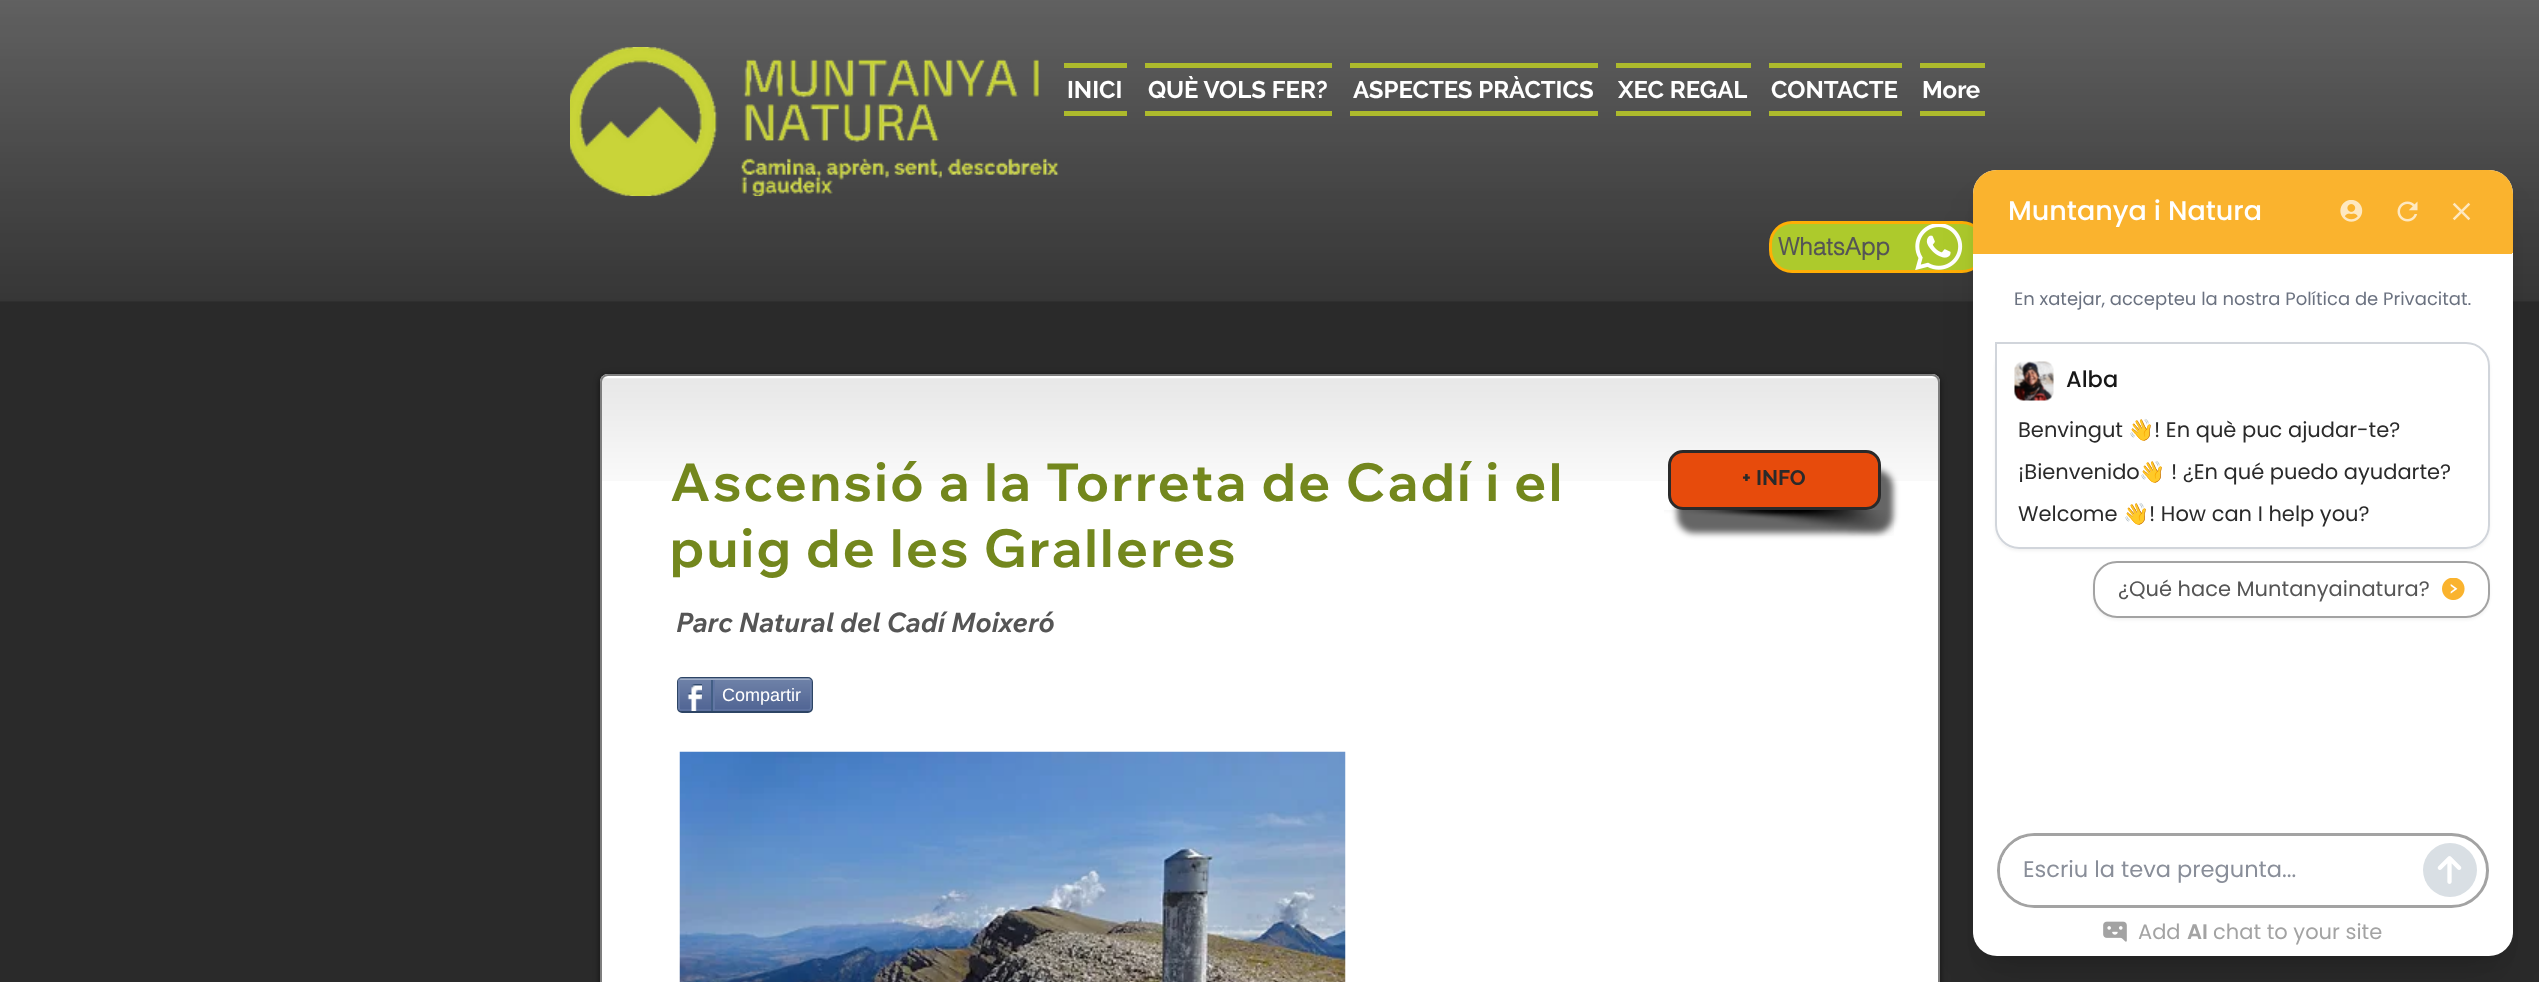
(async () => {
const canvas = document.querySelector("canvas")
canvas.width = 2539
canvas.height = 982
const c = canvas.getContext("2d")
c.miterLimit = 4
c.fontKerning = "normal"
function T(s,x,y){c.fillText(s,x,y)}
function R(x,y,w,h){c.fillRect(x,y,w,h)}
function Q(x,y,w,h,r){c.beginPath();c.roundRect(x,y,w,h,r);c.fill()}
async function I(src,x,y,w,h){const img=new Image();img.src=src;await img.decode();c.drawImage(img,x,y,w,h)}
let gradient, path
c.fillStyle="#2a2a2a"
R(0,0,2539,982)
await I("1.png",0,0,2539,302)
await I("2.png",570,47,489,150)
c.fillStyle="#adba2c"
R(1064,63,63,5)
R(1064,111,63,5)
c.font="bold 24px Raleway"
c.fillStyle="#fff"
T("INICI",1067,98)
c.fillStyle="#adba2c"
R(1145,63,187,5)
R(1145,111,187,5)
c.fillStyle="#fff"
T("QUÈ VOLS FER?",1148,98)
c.fillStyle="#adba2c"
R(1350,63,248,5)
R(1350,111,248,5)
c.fillStyle="#fff"
T("ASPECTES PRÀCTICS",1353,98)
c.fillStyle="#adba2c"
R(1616,63,135,5)
R(1616,111,135,5)
c.fillStyle="#fff"
T("XEC REGAL",1618,98)
c.fillStyle="#adba2c"
R(1769,63,133,5)
R(1769,111,133,5)
c.fillStyle="#fff"
T("CONTACTE",1771,98)
c.fillStyle="#adba2c"
R(1920,63,65,5)
R(1920,111,65,5)
c.fillStyle="#fff"
T("More",1922,98)
c.fillStyle="#adca2c"
c.beginPath()
c.roundRect(1770.5,222.5,213,49,21.5)
c.fill()
c.strokeStyle="#ffae05"
c.lineWidth=3
c.stroke()
c.font="bold 24px helvetica"
c.fillStyle="#555"
T("WhatsApp",1778,255)
await I("3.png",1915,224,48,46)
c.fillStyle="#00000099"
c.filter="blur(3px)"
c.beginPath()
c.roundRect(600,375,1340,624,8)
c.fill()
c.filter="none"
c.fillStyle="#fff"
Q(600,374,1340,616,8)
await I("4.png",600,378,1339,103)
c.beginPath()
c.roundRect(601,375,1338,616,7)
c.strokeStyle="#7f7f7f"
c.lineWidth=2
c.stroke()
c.letterSpacing="2.6px"
c.font="bold 52.5px Wix Madefor Display"
c.fillStyle="#73871d"
T("Ascensió a la Torreta de Cadí i el",670,501)
T("puig de les Gralleres",670,567)
await I("5.png",1664,510,230,26)
c.fillStyle="#00000099"
c.filter="blur(3px)"
c.beginPath()
c.roundRect(1677,470,216,63,17)
c.fill()
c.filter="none"
c.fillStyle="#e74b0c"
c.beginPath()
c.roundRect(1669.5,451.5,210,57,13.5)
c.fill()
c.strokeStyle="#2a2a2a"
c.lineWidth=3
c.stroke()
c.letterSpacing="0px"
c.font="bold 21px 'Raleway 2'"
c.fillStyle="#2a2a2a"
T("+ INFO",1742,485)
c.font="italic bold 27px Wix Madefor Text"
c.fillStyle="#555"
T("Parc Natural del Cadí Moixeró",676,632)
c.beginPath()
c.roundRect(678,678,134,34,4)
c.strokeStyle="#2d4565"
c.lineWidth=2
c.stroke()
await I("6.png",678,679,134,32)
path = new Path2D("M679.5 679.5l1.5-.5h127.5l1.5 .5")
c.strokeStyle="#9aabc6"
c.lineWidth=1.5
c.stroke(path)
path = new Path2D("M810 679.5c.5 .5 1 1 1 1.5v27c0 .5-.5 1-1 1.5")
c.strokeStyle="#6f83ad"
c.stroke(path)
path = new Path2D("M810 709.5l-1.5 .5h-127.5l-1.5-.5")
c.strokeStyle="#6176a3"
c.stroke(path)
path = new Path2D("M679.5 709.5c-.5-.5-.5-1-.5-1.5v-27c0-.5 0-1 .5-1.5")
c.strokeStyle="#6f83ad"
c.stroke(path)
await I("7.png",687,684,15,27)
c.fillStyle="#425e85"
R(711,680,2,31)
c.font="18px Liberation Sans"
c.fillStyle="#fff"
T("Compartir",722,701)
c.fillStyle="#6176a3"
R(713,680,2,30)
await I("8.png",679,751,667,231)
c.fillStyle="#0000001a"
c.filter="blur(7.5px)"
c.beginPath()
c.roundRect(1982,191,522,768,15)
c.fill()
c.filter="none"
c.filter="blur(19px)"
c.beginPath()
c.roundRect(1980,207,525,771,17)
c.fill()
c.filter="none"
c.fillStyle="#fff"
Q(1973,170,540,786,24)
gradient = c.createLinearGradient(2022,84,2463,339)
gradient.addColorStop(1,"#fab32e")
gradient.addColorStop(1,"#fff")
c.fillStyle = gradient
c.beginPath()
c.roundRect(1973,170,540,84,[24,24,0,0])
c.fill()
c.font="500 27px Poppins"
c.fillStyle="#fff"
T("Muntanya i Natura",2008,220)
await I("9.png",2340,200,23,22)
await I("10.png",2397,201,21,21)
await I("11.png",2452,202,19,19)
c.font="18px Poppins"
c.fillStyle="#6b7280"
T("En xatejar, accepteu la nostra Política de Privacitat.",2014,305)
c.save()
path = new Path2D("M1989 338h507v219h-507zm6 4h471c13.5 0 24 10.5 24 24v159c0 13.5-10.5 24-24 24h-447c-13.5 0-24-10.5-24-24z")
c.clip(path,"evenodd")
c.fillStyle="#0000000d"
c.filter="blur(1.5px)"
c.beginPath()
c.roundRect(1995,344,495,207,24)
c.fill()
c.filter="none"
c.restore()
c.beginPath()
c.roundRect(1996,343,493,205,[0,23,23,23])
c.strokeStyle="#d1d5db"
c.lineWidth=2
c.stroke()
await I("12.png",2014,361,40,40)
c.font="500 22.5px Poppins"
c.fillStyle="#171717"
T("Alba",2066,387)
c.font="21px Poppins"
c.fillStyle="#2a2a2a"
T("Benvingut",2018,437)
c.font="21px Noto Color Emoji"
T("👋",2128,437)
c.font="21px Poppins"
T("! En què puc ajudar-te?",2154,437)
T("¡Bienvenido",2018,479)
c.font="21px Noto Color Emoji"
T("👋",2139,479)
c.font="21px Poppins"
T("! ¿En qué puedo ayudarte?",2171,479)
T("Welcome",2018,521)
c.font="21px Noto Color Emoji"
T("👋",2123,521)
c.font="21px Poppins"
T("! How can I help you?",2149,521)
c.fillStyle="#0000000d"
c.filter="blur(1.5px)"
c.beginPath()
c.roundRect(2093,563,397,57,24)
c.fill()
c.filter="none"
c.fillStyle="#fff"
c.beginPath()
c.roundRect(2094,562,395,55,23)
c.fill()
c.strokeStyle="#a3a3a3"
c.stroke()
c.fillStyle="#555"
T("¿Qué hace Muntanyainatura?",2118,596)
await I("13.png",2442,578,23,22)
c.fillStyle="#fff"
c.beginPath()
c.roundRect(1973,821,540,132,[0,0,24,24])
c.fill()
c.beginPath()
c.roundRect(1998.5,834.5,489,72,36)
c.lineWidth=3
c.stroke()
Q(2000,836,417,69,34.5)
c.font="22.5px Poppins"
c.fillStyle="#898e99"
T("Escriu la teva pregunta...",2023,877)
c.fillStyle="#d9dfe4"
c.beginPath()
c.arc(2450,870,27,0,7)
c.fill()
await I("14.png",2437,856,25,28)
await I("15.png",2103,921,24,21)
c.font="21px Poppins"
c.fillStyle="#a3a3a3"
T("Add",2138,939)
c.font="600 21px Poppins"
T("AI",2187,939)
c.font="21px Poppins"
T("chat to your site",2213,939)
})()
